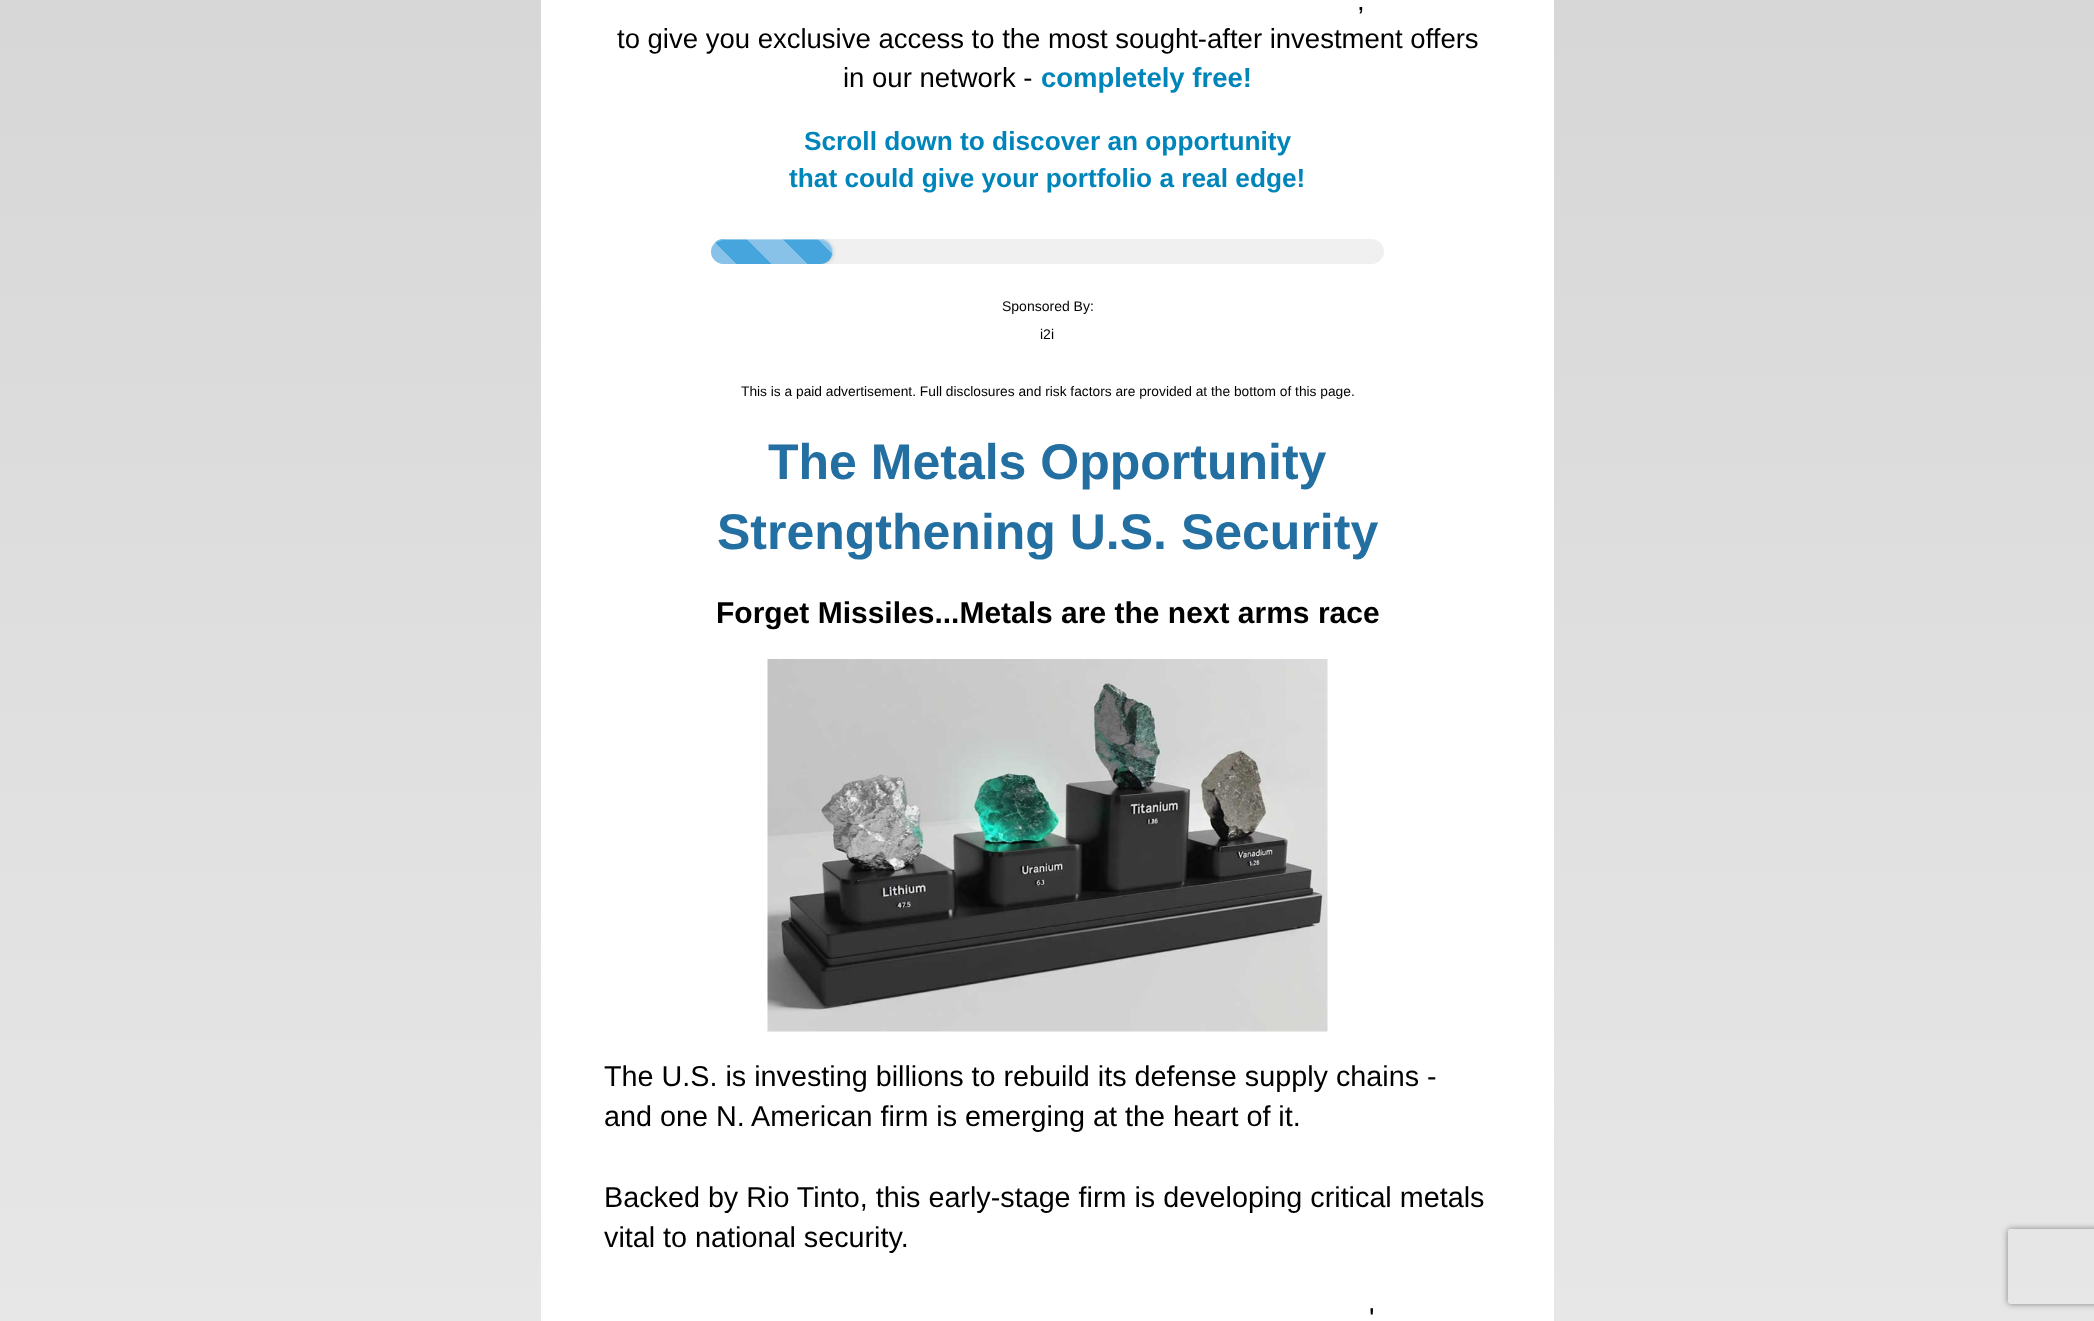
(async () => {
const canvas = document.querySelector("canvas")
canvas.width = 2094
canvas.height = 1321
const c = canvas.getContext("2d")
c.miterLimit = 4
c.fontKerning = "normal"
function T(s,x,y){c.fillText(s,x,y)}
function R(x,y,w,h){c.fillRect(x,y,w,h)}
function Q(x,y,w,h,r){c.beginPath();c.roundRect(x,y,w,h,r);c.fill()}
async function I(src,x,y,w,h){const img=new Image();img.src=src;await img.decode();c.drawImage(img,x,y,w,h)}
let gradient, path
c.fillStyle="#fff"
R(0,0,2094,1321)
gradient = c.createLinearGradient(1047,-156,1048,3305)
gradient.addColorStop(0,"#d5d5d5")
gradient.addColorStop(1,"#fff")
c.fillStyle = gradient
R(0,0,2094,1321)
c.fillStyle="#fff"
R(541,0,1013,1321)
c.font="27.5px Liberation Sans"
c.fillStyle="#000"
T(",",1357,10)
T("to give you exclusive access to the most sought-after investment offers",617,48)
T("in our network -",843,87)
c.font="bold 27.5px Liberation Sans"
c.fillStyle="#0085ba"
T("completely free!",1041,87)
c.font="bold 26.25px Liberation Sans"
T("Scroll down to discover an opportunity",804,150)
T("that could give your portfolio a real edge!",789,187)
c.fillStyle="#f0f0f0"
Q(711,239,673,25,12.5)
c.save()
c.beginPath()
c.roundRect(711,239,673,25,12.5)
c.clip()
c.fillStyle="#00000026"
c.filter="blur(2px)"
c.beginPath()
c.roundRect(711,240,122,25,12.5)
c.fill()
c.filter="none"
c.restore()
gradient = c.createLinearGradient(711,309,782,239)
gradient.addColorStop(.25,"#46a5dd")
gradient.addColorStop(.25,"#88c2e9")
gradient.addColorStop(.5,"#88c2e9")
gradient.addColorStop(.5,"#46a5dd")
gradient.addColorStop(.75,"#46a5dd")
gradient.addColorStop(.75,"#88c2e9")
gradient.addColorStop(1,"#88c2e9")
c.fillStyle = gradient
c.beginPath()
c.roundRect(711,239,72,25,[12.5,0,0,12.5])
c.fill()
gradient = c.createLinearGradient(782,309,853,239)
gradient.addColorStop(.25,"#46a5dd")
gradient.addColorStop(.25,"#88c2e9")
gradient.addColorStop(.5,"#88c2e9")
gradient.addColorStop(.5,"#46a5dd")
gradient.addColorStop(.75,"#46a5dd")
gradient.addColorStop(.75,"#88c2e9")
gradient.addColorStop(1,"#88c2e9")
c.fillStyle = gradient
c.beginPath()
c.roundRect(783,239,50,25,[0,12.5,12.5,0])
c.fill()
c.fillStyle="#ffffff66"
path = new Path2D("M724 240h96c7 0 12 6 12 12c0 3-1 6-3 9c3-3 5-8 4-12c-3-13-19-10-29-10h-64c-10 0-29-3-29 13c0-6 6-12 13-12z")
c.fill(path)
c.font="14px Liberation Sans"
c.fillStyle="#000"
T("Sponsored By:",1002,311)
T("i2i",1040,339)
c.font="13.75px Liberation Sans"
T("This is a paid advertisement. Full disclosures and risk factors are provided at the bottom of this page.",741,396)
c.font="bold 50px Liberation Sans"
c.fillStyle="#236fa1"
T("The Metals Opportunity",768,479)
T("Strengthening U.S. Security",717,549)
c.font="bold 30px Liberation Sans"
c.fillStyle="#000"
T("Forget Missiles...Metals are the next arms race",716,623)
await I("1.png",767,659,561,373)
c.font="28.75px Liberation Sans"
T("The U.S. is investing billions to rebuild its defense supply chains -",604,1086)
T("and one N. American firm is emerging at the heart of it.",604,1126)
T("Backed by Rio Tinto, this early-stage firm is developing critical metals",604,1207)
T("vital to national security.",604,1247)
T("'",1369,1328)
c.save()
path = new Path2D("M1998 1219h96v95h-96zm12.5 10h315c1.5 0 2.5 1 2.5 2.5v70c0 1.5-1 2.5-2.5 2.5h-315c-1.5 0-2.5-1-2.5-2.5v-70c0-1.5 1-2.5 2.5-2.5z")
c.clip(path,"evenodd")
c.fillStyle="#808080"
c.filter="blur(3px)"
c.beginPath()
c.roundRect(2008,1229,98,75,2.5)
c.fill()
c.filter="none"
c.restore()
})()
